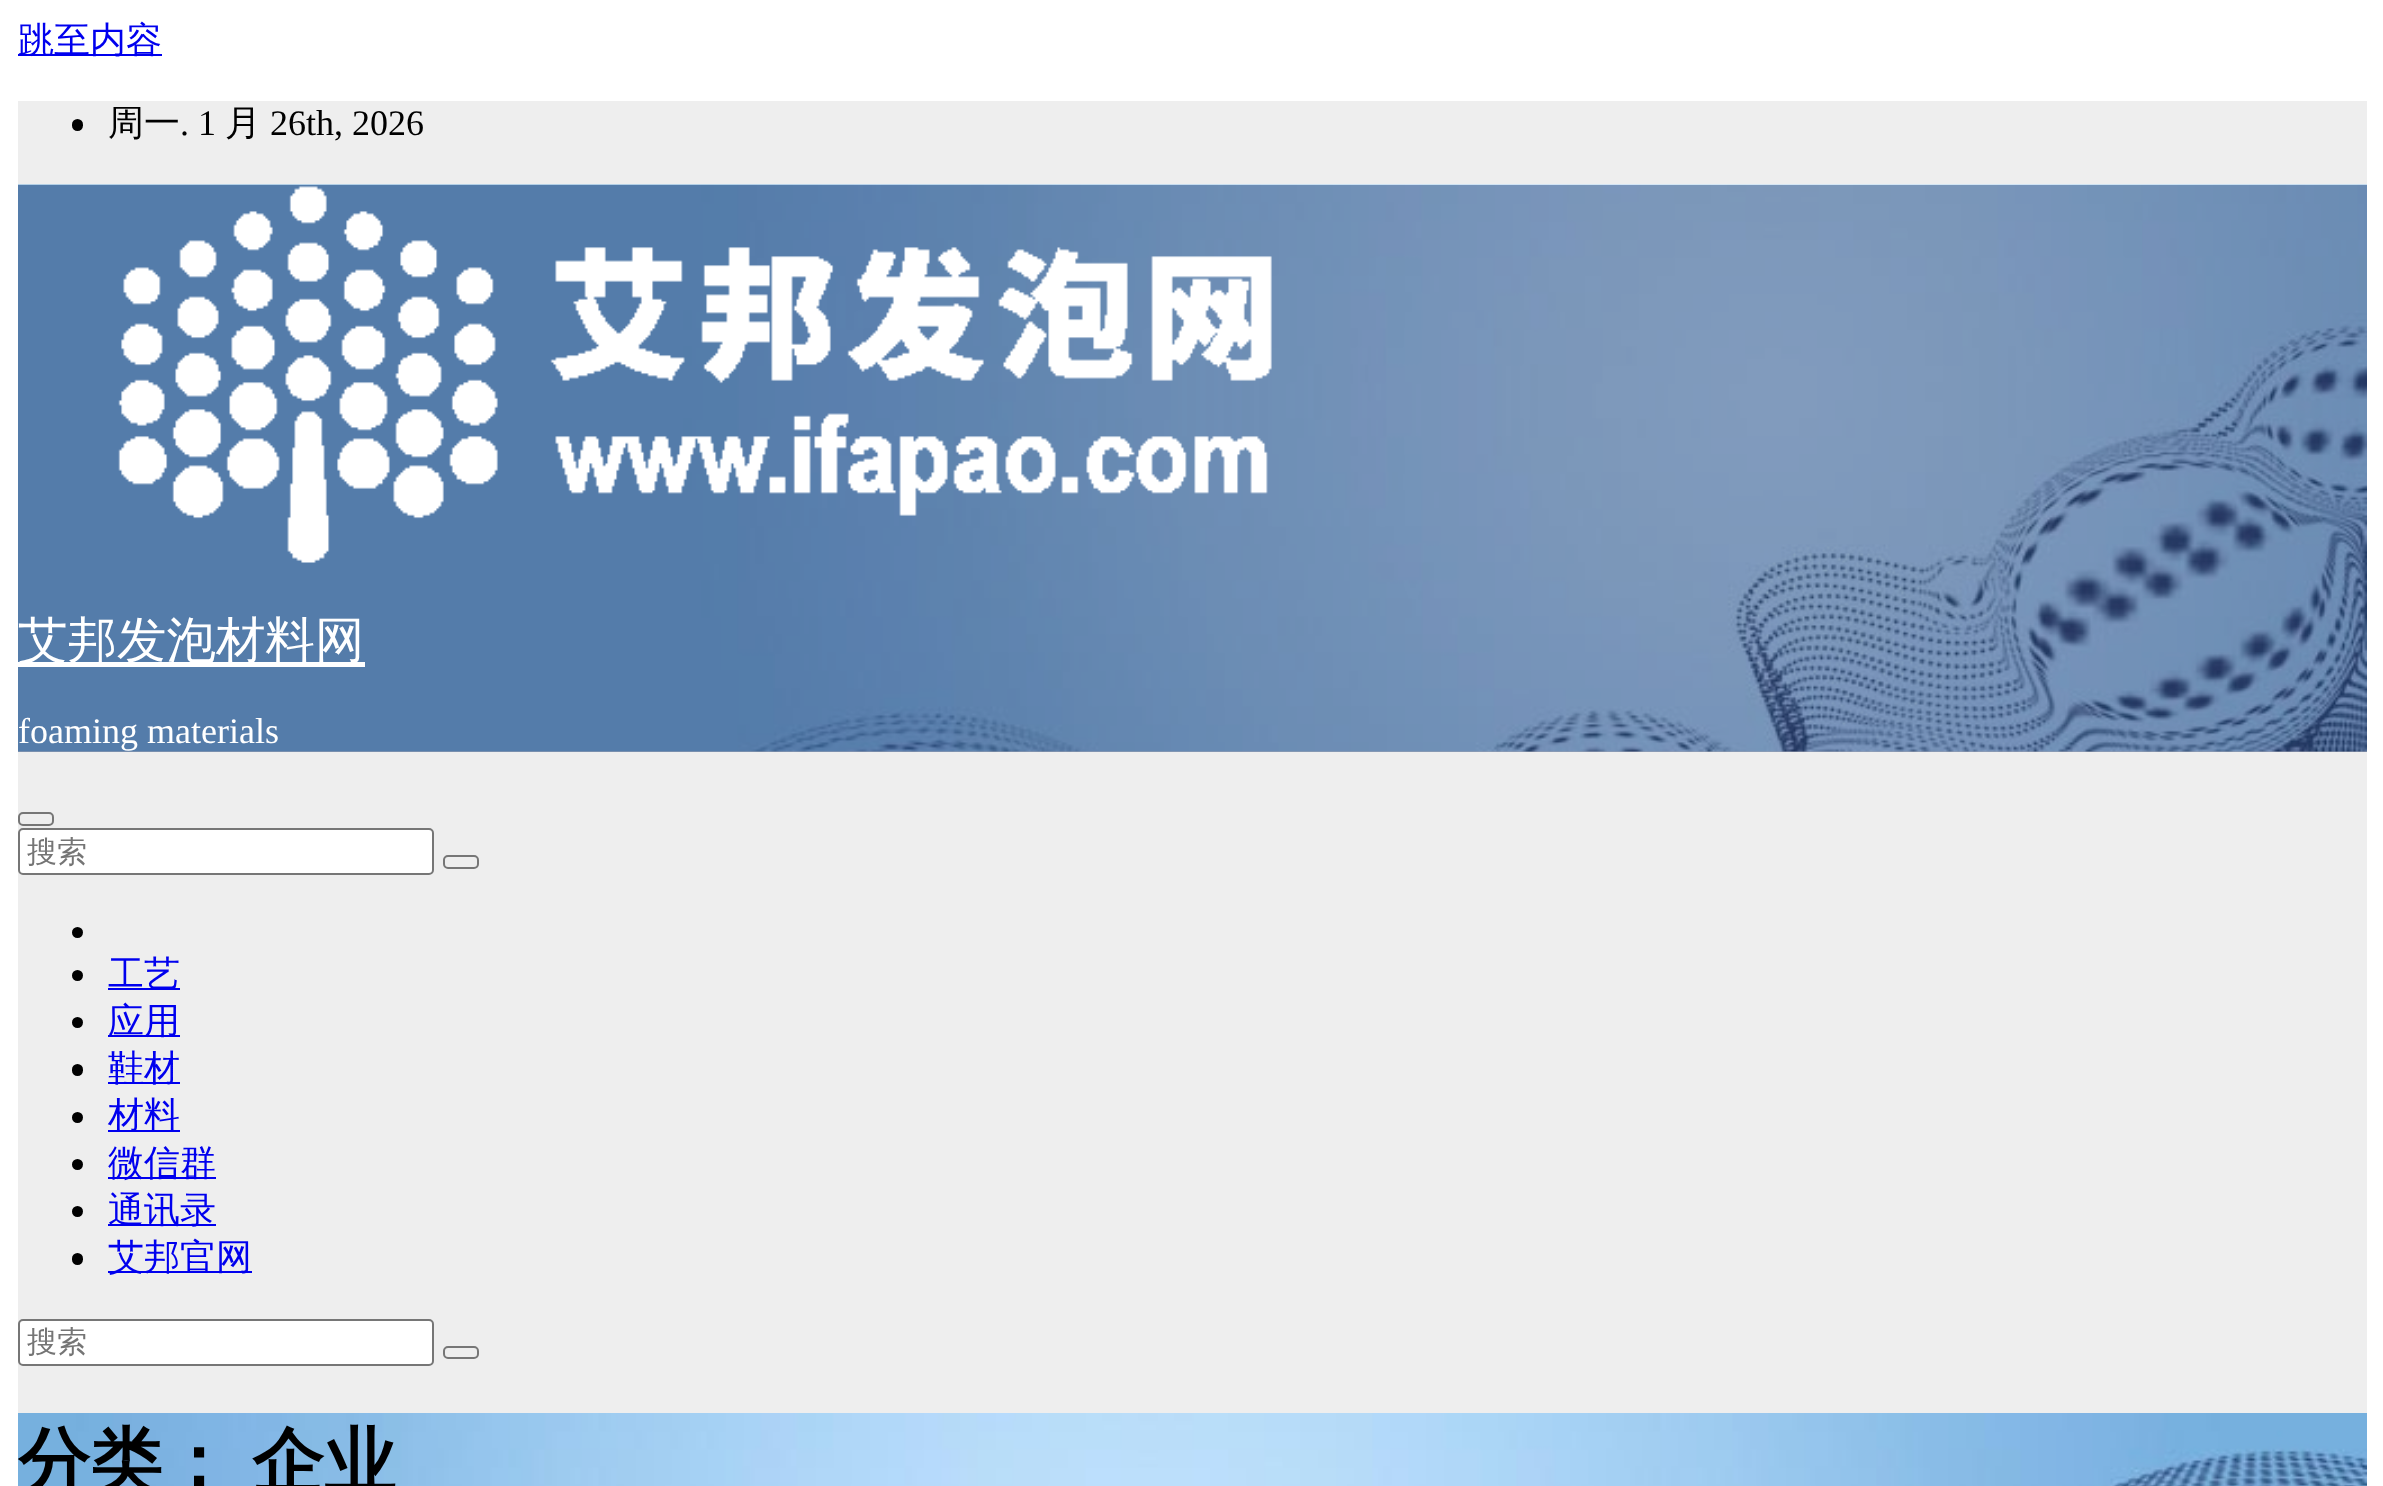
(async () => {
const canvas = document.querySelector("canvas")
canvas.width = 2383
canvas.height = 1486
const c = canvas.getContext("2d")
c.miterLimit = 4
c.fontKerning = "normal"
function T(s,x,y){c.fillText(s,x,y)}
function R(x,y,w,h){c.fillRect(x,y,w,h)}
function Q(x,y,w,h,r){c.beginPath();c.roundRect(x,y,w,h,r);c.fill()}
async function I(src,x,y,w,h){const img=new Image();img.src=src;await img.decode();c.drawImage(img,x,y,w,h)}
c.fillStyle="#fff"
R(0,0,2383,1486)
c.fillStyle="#00e"
R(18,54,144,2)
c.font="500 36px WenQuanYi Zen Hei"
T("跳至内容",18,52)
c.fillStyle="#eee"
R(18,101,2349,1312)
c.fillStyle="#9ca2b3"
R(18,751,2349,1)
c.fillStyle="#000"
Q(72,119,11,12,5.5)
T("周一",108,135)
c.font="36px Liberation Serif"
T(". 1",180,135)
c.font="500 36px WenQuanYi Zen Hei"
T("月",225,135)
c.font="36px Liberation Serif"
T("26th, 2026",270,135)
await I("1.png",18,184,2349,568)
await I("2.png",118,186,1154,377)
c.fillStyle="#fff"
R(18,662,347,5)
c.font="500 49.5px WenQuanYi Zen Hei"
T("艾邦发泡材料网",18,657)
c.font="36px Liberation Serif"
T("foaming materials",18,743)
c.beginPath()
c.roundRect(19,813,34,12,4)
c.strokeStyle="#767676"
c.lineWidth=2
c.stroke()
c.beginPath()
c.roundRect(19,829,414,45,4)
c.fill()
c.stroke()
c.font="500 30px WenQuanYi Zen Hei"
c.fillStyle="#757575"
T("搜索",27,862)
c.beginPath()
c.roundRect(444,856,34,12,4)
c.stroke()
c.fillStyle="#000"
c.beginPath()
c.arc(77.5,932.5,5.5,0,7)
c.fill()
c.beginPath()
c.arc(77.5,975.5,5.5,0,7)
c.fill()
c.fillStyle="#00e"
R(108,988,72,2)
c.font="500 36px WenQuanYi Zen Hei"
T("工艺",108,986)
c.fillStyle="#000"
c.beginPath()
c.arc(77.5,1022.5,5.5,0,7)
c.fill()
c.fillStyle="#00e"
R(108,1035,72,2)
T("应用",108,1033)
c.fillStyle="#000"
Q(72,1064,11,12,5.5)
c.fillStyle="#00e"
R(108,1082,72,2)
T("鞋材",108,1080)
c.fillStyle="#000"
c.beginPath()
c.arc(77.5,1117.5,5.5,0,7)
c.fill()
c.fillStyle="#00e"
R(108,1130,72,2)
T("材料",108,1127)
c.fillStyle="#000"
c.beginPath()
c.arc(77.5,1164.5,5.5,0,7)
c.fill()
c.fillStyle="#00e"
R(108,1177,108,2)
T("微信群",108,1175)
c.fillStyle="#000"
c.beginPath()
c.arc(77.5,1211.5,5.5,0,7)
c.fill()
c.fillStyle="#00e"
R(108,1224,108,2)
T("通讯录",108,1222)
c.fillStyle="#000"
Q(72,1253,11,12,5.5)
c.fillStyle="#00e"
R(108,1271,144,2)
T("艾邦官网",108,1269)
c.fillStyle="#fff"
c.beginPath()
c.roundRect(19,1320,414,45,4)
c.fill()
c.stroke()
c.font="500 30px WenQuanYi Zen Hei"
c.fillStyle="#757575"
T("搜索",27,1352)
c.beginPath()
c.roundRect(444,1347,34,11,4)
c.stroke()
await I("3.png",18,1413,2349,73)
c.font="bold 72px WenQuanYi Zen Hei"
c.fillStyle="#000"
T("分类：",18,1486)
T("企业",252,1486)
})()
